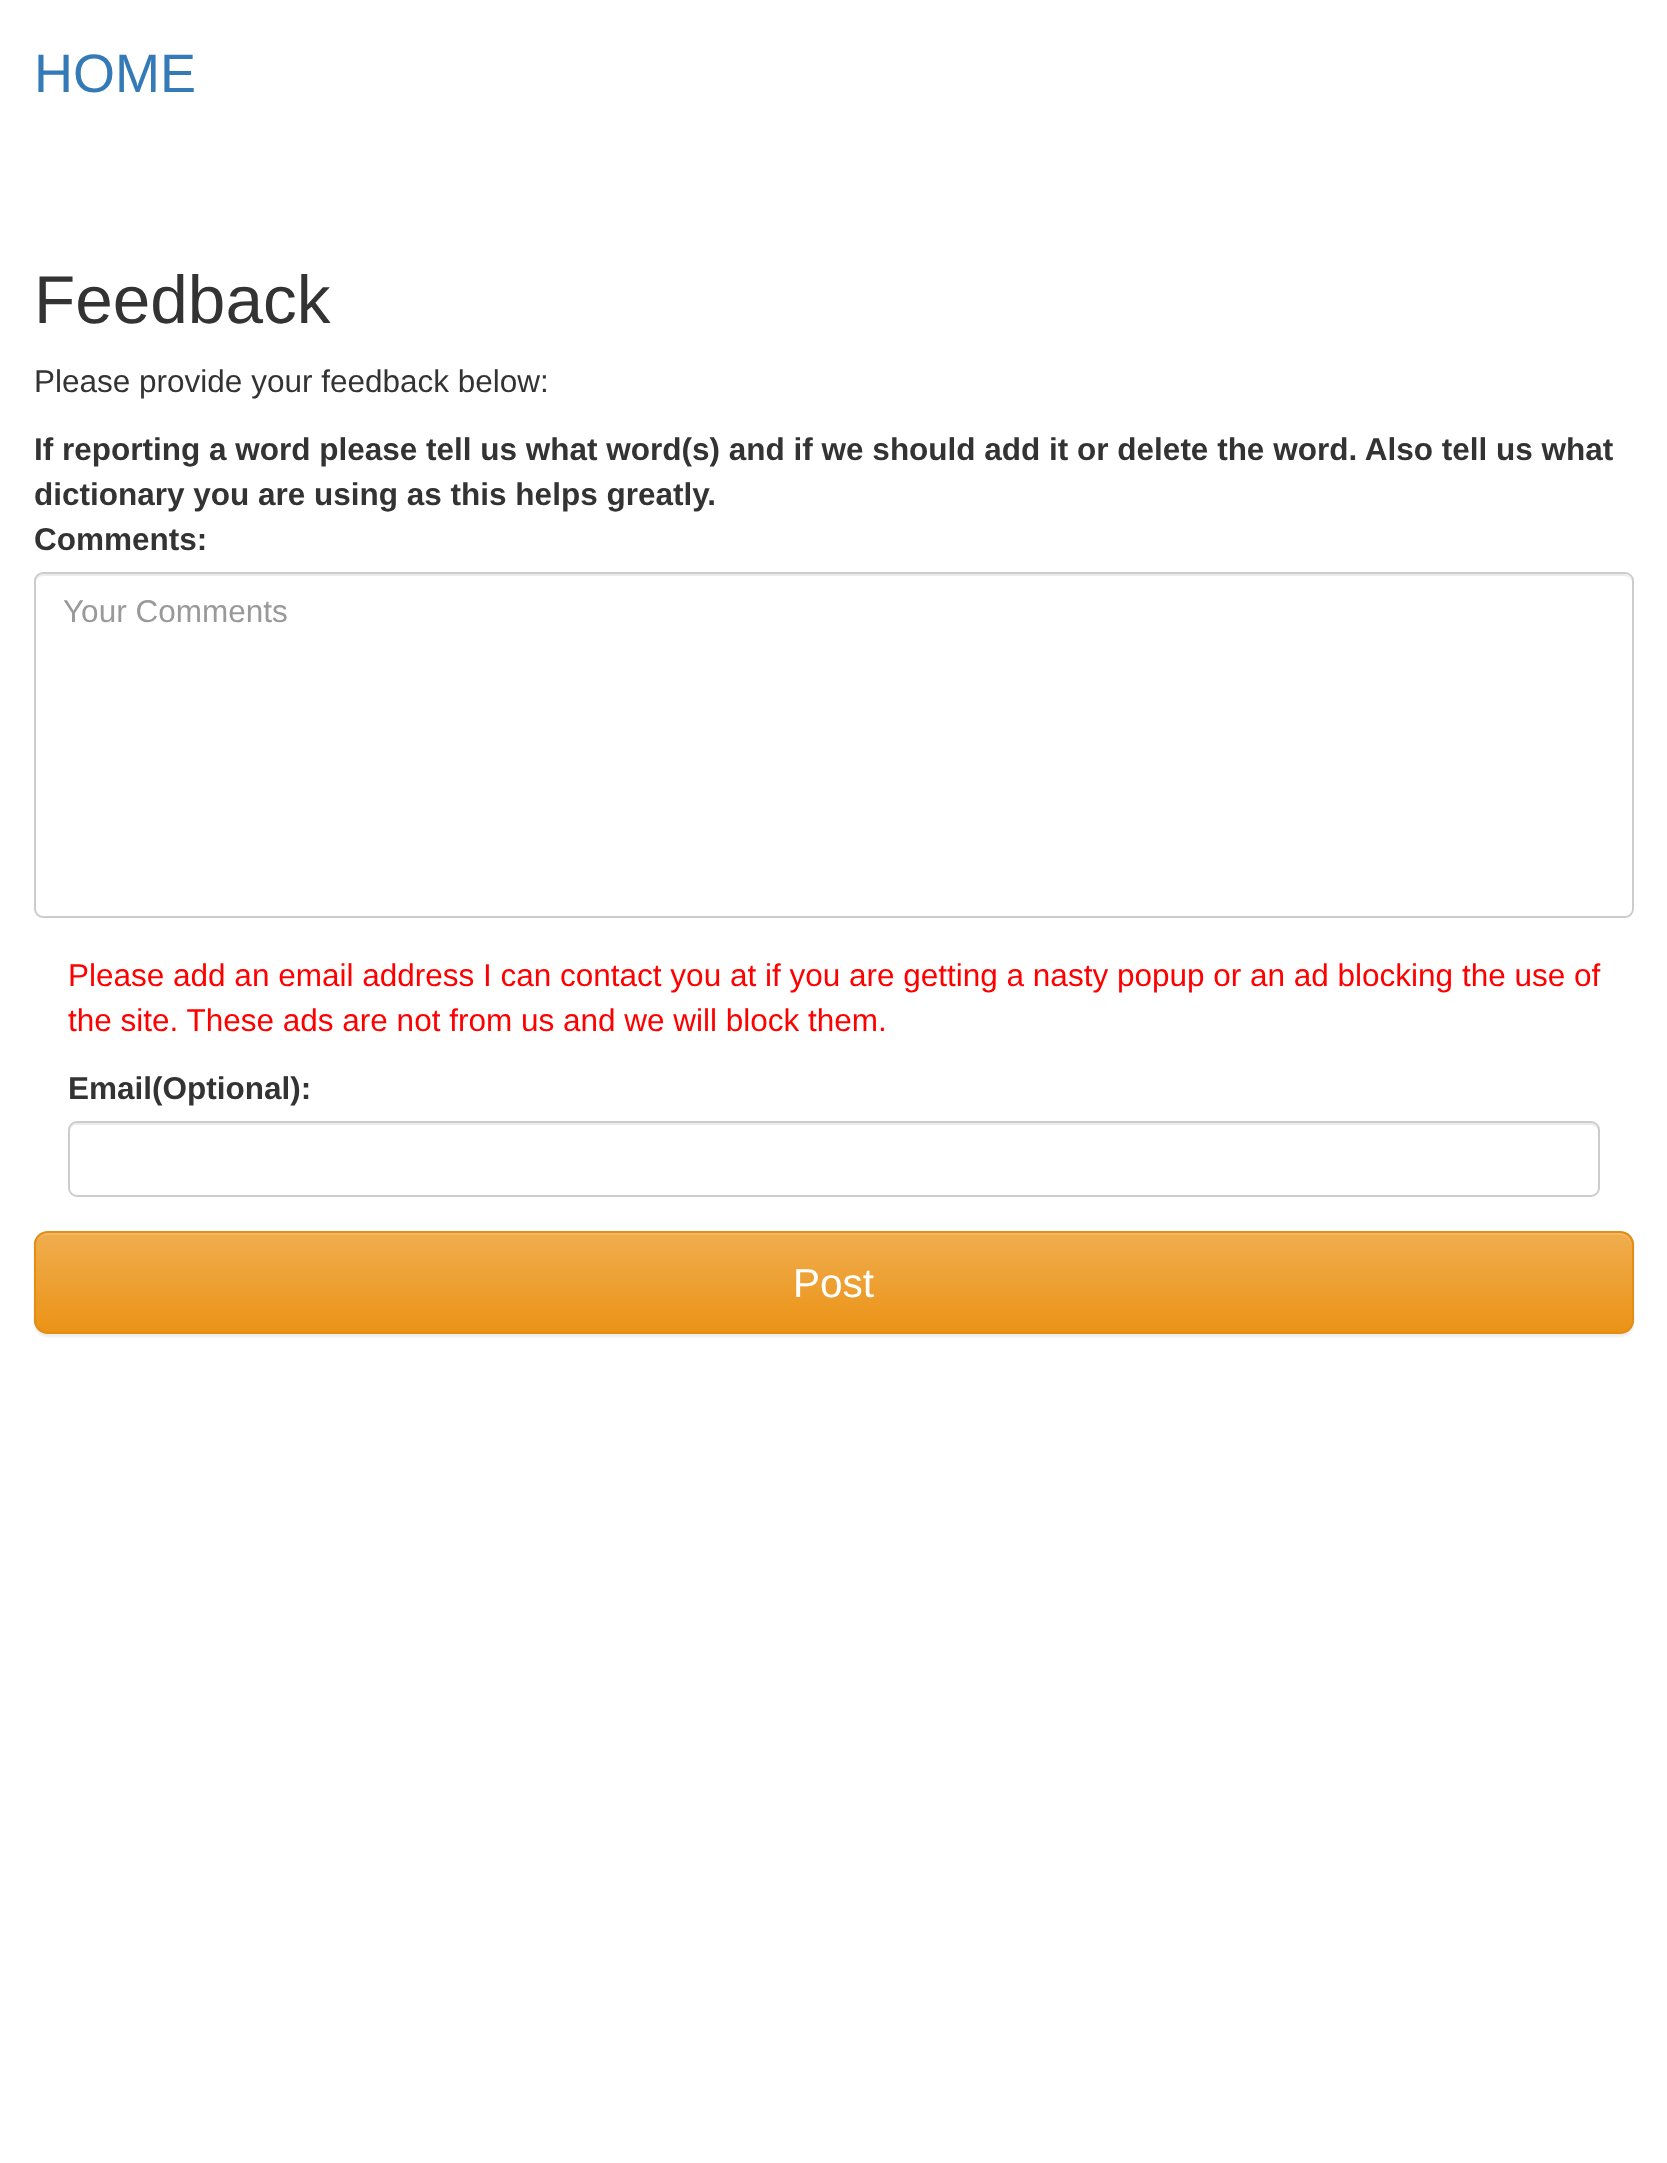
(async () => {
const canvas = document.querySelector("canvas")
canvas.width = 1667
canvas.height = 2163
const c = canvas.getContext("2d")
c.miterLimit = 4
c.fontKerning = "normal"
function T(s,x,y){c.fillText(s,x,y)}
function R(x,y,w,h){c.fillRect(x,y,w,h)}
let gradient, path
c.fillStyle="#fff"
R(0,0,1667,2163)
c.font="54px Liberation Sans"
c.fillStyle="#337ab7"
T("HOME",34,92)
c.font="67.5px Liberation Sans"
c.fillStyle="#333"
T("Feedback",34,323)
c.font="31.5px Liberation Sans"
T("Please provide your feedback below:",34,392)
c.font="bold 31.5px Liberation Sans"
T("If reporting a word please tell us what word(s) and if we should add it or delete the word. Also tell us what",34,460)
T("dictionary you are using as this helps greatly.",34,505)
T("Comments:",34,550)
c.fillStyle="#ececec"
path = new Path2D("M43 576h1581c4 0 7 3 7 7c0-4-2-9-7-9h-1581c-5 0-7 5-7 9c0-4 3-7 7-7z")
c.fill(path)
c.beginPath()
c.roundRect(35,573,1598,344,8)
c.strokeStyle="#ccc"
c.lineWidth=2
c.stroke()
c.font="31.5px Liberation Sans"
c.fillStyle="#999"
T("Your Comments",63,622)
c.fillStyle="#f00"
T("Please add an email address I can contact you at if you are getting a nasty popup or an ad blocking the use of",68,986)
T("the site. These ads are not from us and we will block them.",68,1031)
c.font="bold 31.5px Liberation Sans"
c.fillStyle="#333"
T("Email(Optional):",68,1099)
c.fillStyle="#ececec"
path = new Path2D("M76 1125h1515c3 0 7 3 7 7c0-4-2-9-7-9h-1514c-5 0-7 5-7 9c0-4 3-7 6-7z")
c.fill(path)
c.beginPath()
c.roundRect(69,1122,1530,74,8)
c.stroke()
c.fillStyle="#00000012"
c.filter="blur(1px)"
c.beginPath()
c.roundRect(34,1233,1600,104,14)
c.fill()
c.filter="none"
c.save()
c.beginPath()
c.roundRect(34,1231,1600,103,14)
c.clip()
gradient = c.createLinearGradient(834,1233,834,1332)
gradient.addColorStop(0,"#f0ad4e")
gradient.addColorStop(1,"#eb9316")
c.fillStyle = gradient
R(34,1233,1600,99)
c.restore()
c.fillStyle="#ffffff26"
path = new Path2D("M47 1235h1573c6 0 11 5 11 11v-2c0-6-5-11-11-11h-1573c-6 0-11 5-11 11v2c0-6 5-11 11-11z")
c.fill(path)
c.beginPath()
c.roundRect(35,1232,1598,101,13)
c.strokeStyle="#e38d13"
c.stroke()
c.font="40.5px Liberation Sans"
c.fillStyle="#fff"
T("Post",793,1297)
})()
